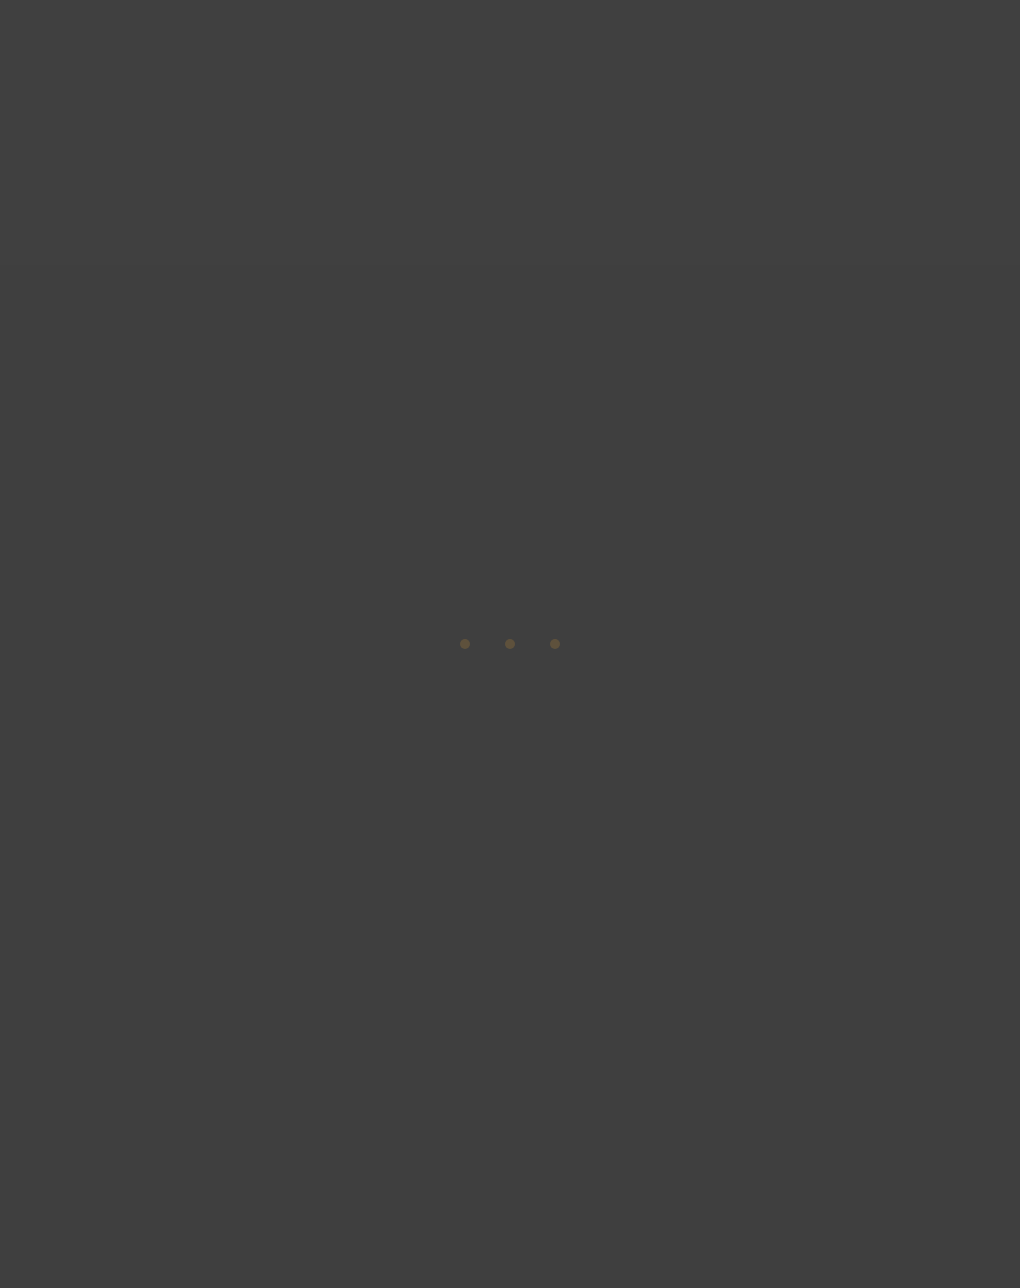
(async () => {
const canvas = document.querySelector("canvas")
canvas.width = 1020
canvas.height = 1288
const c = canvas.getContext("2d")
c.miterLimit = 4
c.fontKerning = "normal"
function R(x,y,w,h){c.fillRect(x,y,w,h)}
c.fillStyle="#f9f9f9"
R(0,0,1020,1288)
c.fillStyle="#fff"
R(0,0,1020,265)
c.fillStyle="#000000bf"
R(0,0,510,1288)
R(510,0,510,1288)
c.fillStyle="#dd993333"
c.beginPath()
c.arc(465,644,5,0,7)
c.fill()
c.beginPath()
c.arc(510,644,5,0,7)
c.fill()
c.beginPath()
c.arc(555,644,5,0,7)
c.fill()
})()
